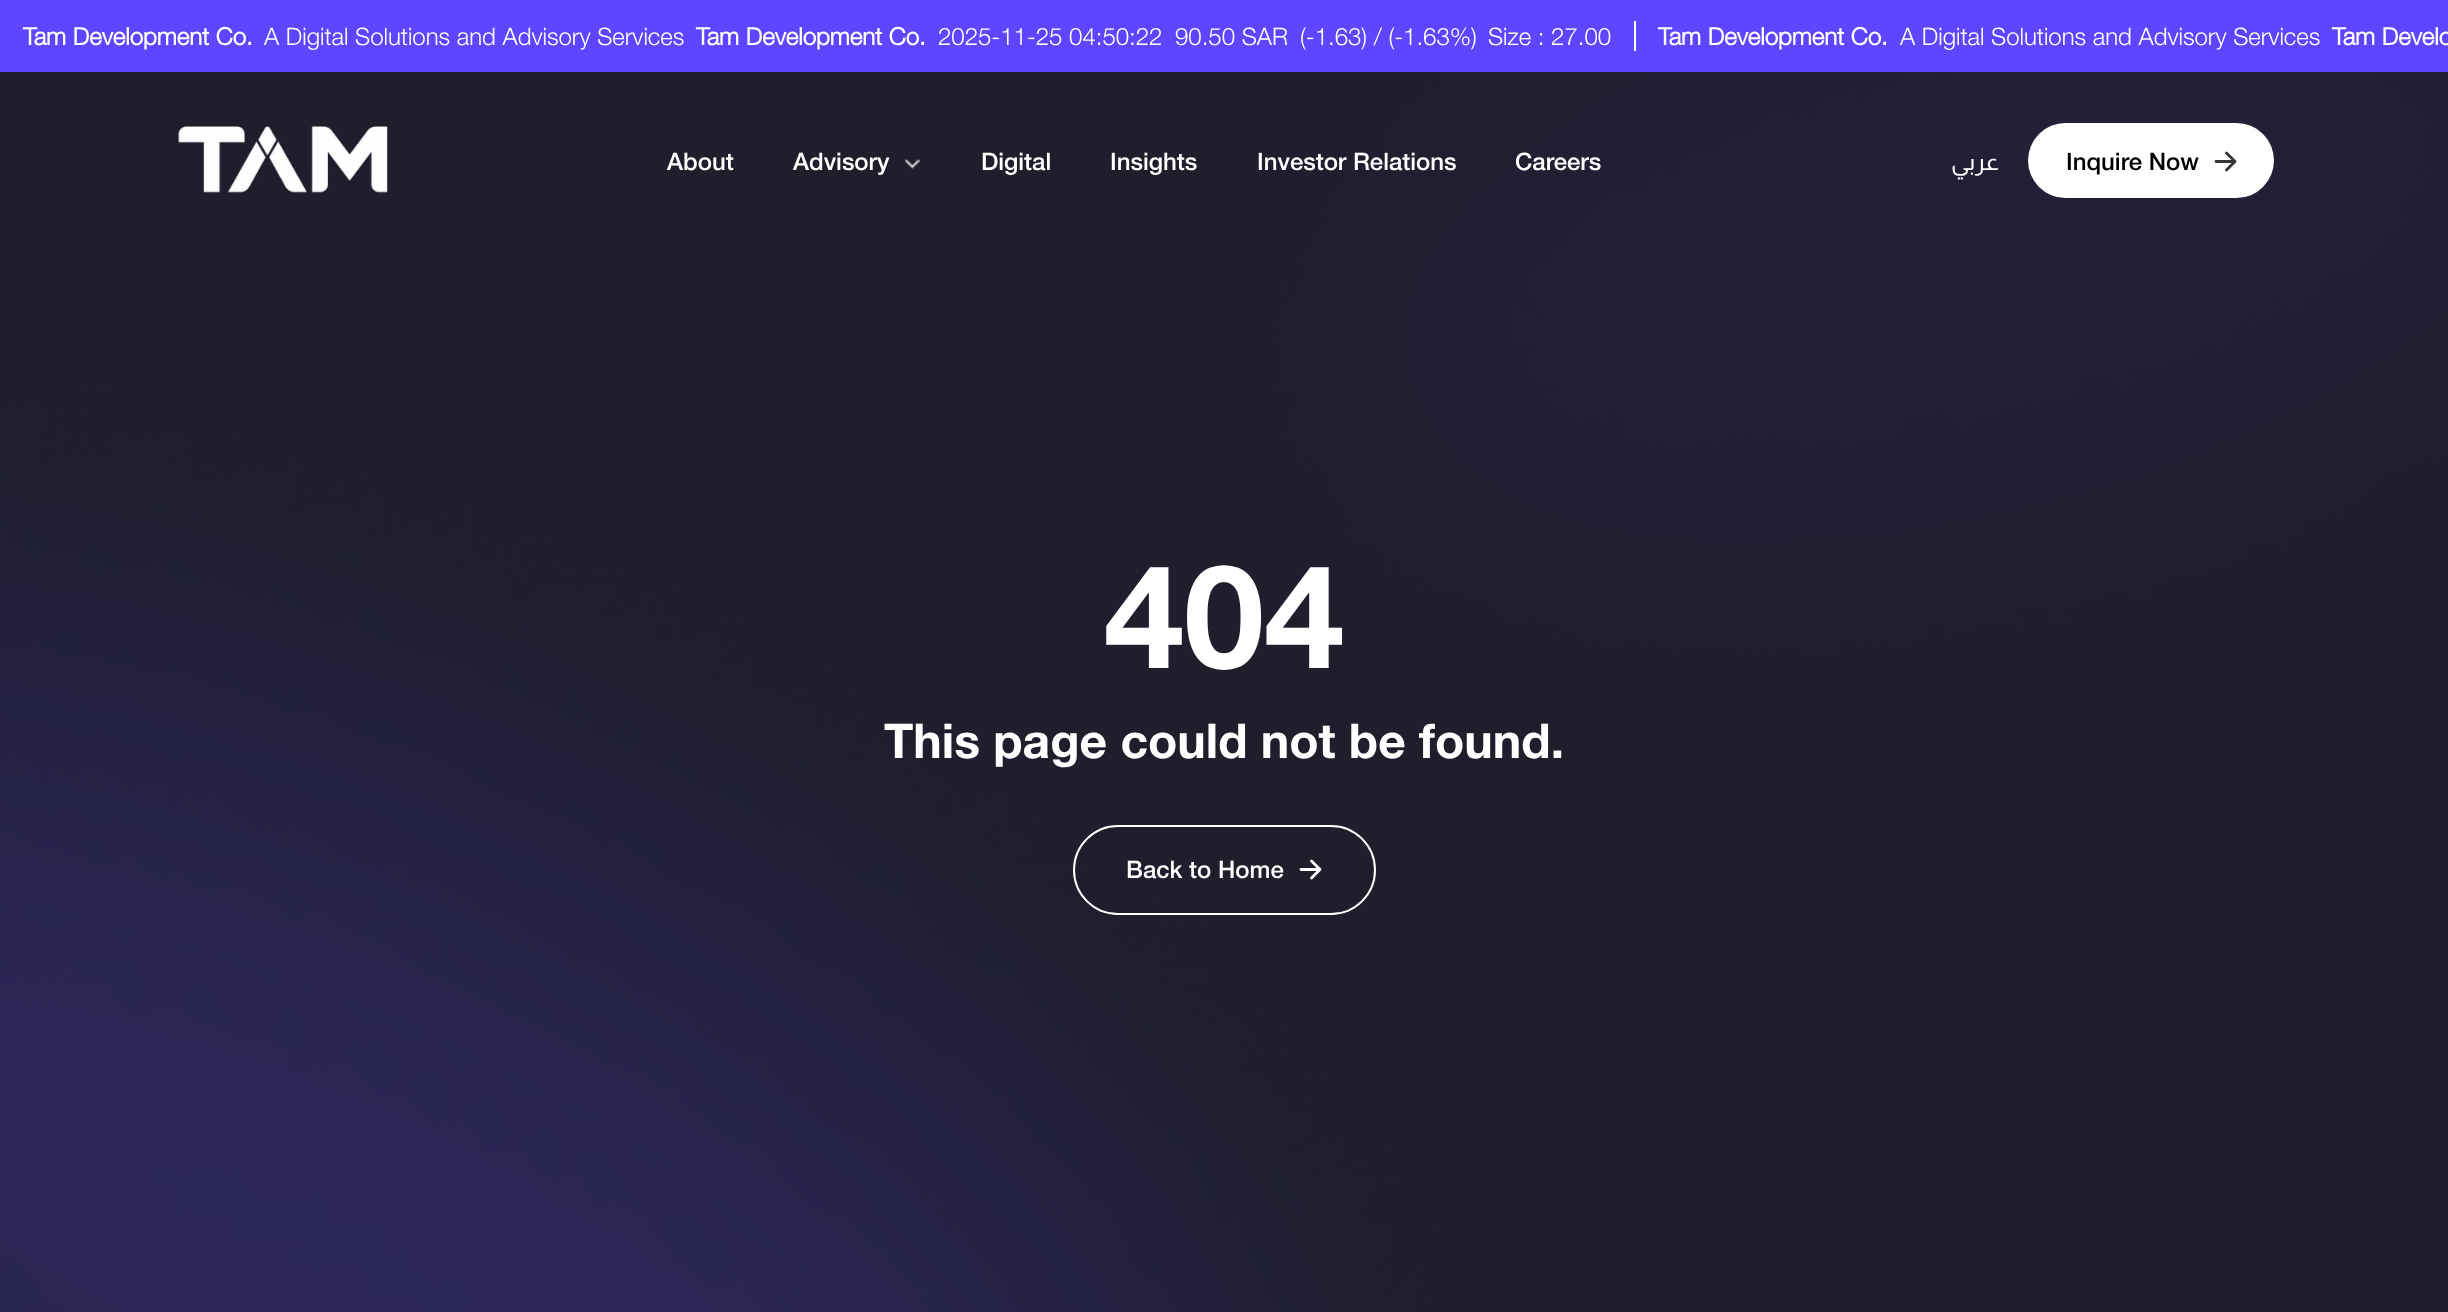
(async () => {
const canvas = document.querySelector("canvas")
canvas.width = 2448
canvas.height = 1312
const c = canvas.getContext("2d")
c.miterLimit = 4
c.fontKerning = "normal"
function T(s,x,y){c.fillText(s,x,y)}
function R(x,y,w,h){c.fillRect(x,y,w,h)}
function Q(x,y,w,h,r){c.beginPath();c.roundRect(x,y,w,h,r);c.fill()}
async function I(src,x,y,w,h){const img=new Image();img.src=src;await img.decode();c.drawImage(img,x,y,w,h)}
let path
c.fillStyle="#fff"
R(0,0,2448,1312)
c.fillStyle="#5e45ff"
R(0,0,2448,72)
c.fillStyle="#fff"
R(1634,21,2,30)
c.font="bold 24px 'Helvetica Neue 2'"
T("Tam Development Co.",23,45)
c.font="300 24px Helvetica Neue"
T("A Digital Solutions and Advisory Services",264,45)
c.font="bold 24px 'Helvetica Neue 2'"
T("Tam Development Co.",696,45)
c.font="300 24px Helvetica Neue"
T("2025-11-25 04:50:22",938,45)
T("90.50 SAR",1175,45)
T("(-1.63) / (-1.63%)",1300,45)
T("Size : 27.00",1488,45)
c.font="bold 24px 'Helvetica Neue 2'"
T("Tam Development Co.",1658,45)
c.font="300 24px Helvetica Neue"
T("A Digital Solutions and Advisory Services",1900,45)
c.font="bold 24px 'Helvetica Neue 2'"
T("Tam Develo",2332,45)
await I("3.png",0,72,2448,1240)
await I("1.png",178,126,210,67)
c.font="500 24px Helvetica Neue"
T("About",667,170)
T("Advisory",793,170)
await I("2.png",904,159,16,10)
T("Digital",981,170)
T("Insights",1110,170)
T("Investor Relations",1257,170)
T("Careers",1515,170)
c.direction="rtl"
c.font="24px Almarai"
T("عربي",1999,170)
Q(2028,123,246,75,37.5)
c.direction="ltr"
c.font="500 24px Helvetica Neue"
c.fillStyle="#000"
T("Inquire Now",2066,170)
path = new Path2D("M2235 161.5h-19m10.5 8.5l8.5-8.5l-8.5-8.5")
c.strokeStyle="#353535"
c.lineWidth=2.8
c.lineCap="round"
c.lineJoin="round"
c.stroke(path)
c.font="bold 144px Helvetica Neue"
c.fillStyle="#fff"
T("404",1104,668)
c.font="bold 48px Helvetica Neue"
T("This page could not be found.",884,758)
c.beginPath()
c.roundRect(1074,826,301,88,44)
c.strokeStyle="#fff"
c.lineWidth=2
c.lineJoin="miter"
c.stroke()
c.font="500 24px Helvetica Neue"
T("Back to Home",1126,878)
path = new Path2D("M1320 869.5h-19m10.5 8.5l8.5-8.5l-8.5-8.5")
c.lineWidth=2.8
c.lineJoin="round"
c.stroke(path)
})()
